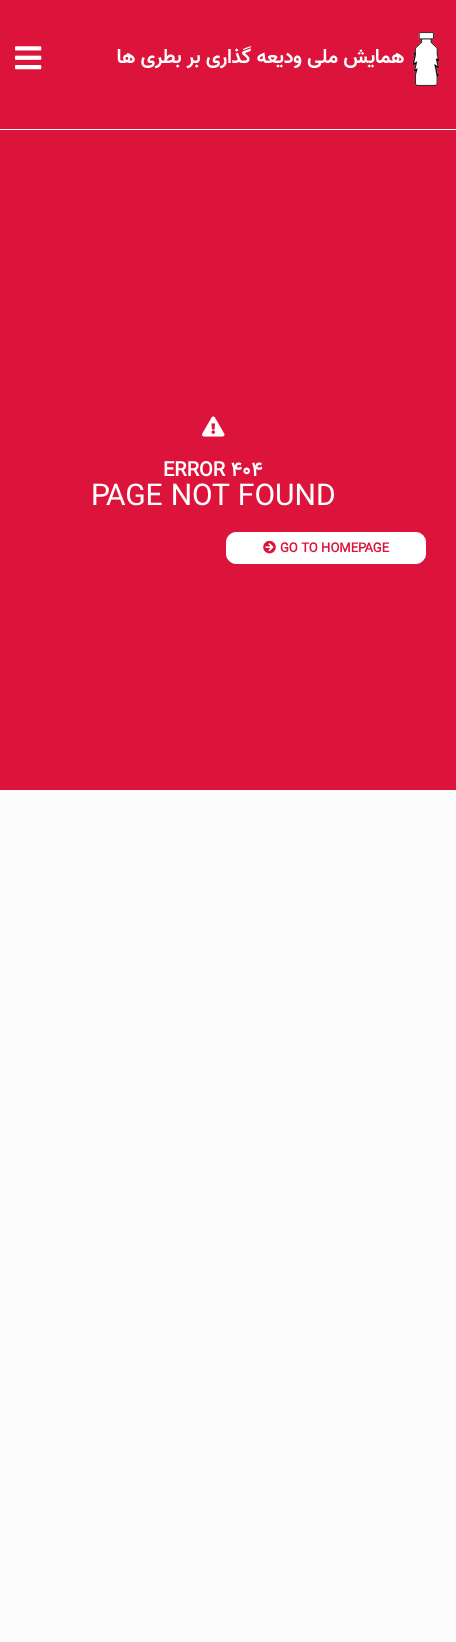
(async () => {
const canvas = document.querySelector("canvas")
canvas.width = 456
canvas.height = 1642
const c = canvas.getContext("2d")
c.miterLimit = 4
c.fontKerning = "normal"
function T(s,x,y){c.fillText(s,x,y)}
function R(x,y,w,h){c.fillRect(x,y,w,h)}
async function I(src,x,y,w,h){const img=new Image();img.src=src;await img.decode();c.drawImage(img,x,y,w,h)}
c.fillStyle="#fbfbfb"
R(0,0,456,1642)
c.fillStyle="#dc143c"
R(0,0,456,129)
c.fillStyle="#fff"
R(0,129,456,1)
await I("1.png",15,46,27,24)
await I("2.png",117,32,323,54)
c.fillStyle="#dc143c"
R(0,130,456,660)
await I("3.png",202,416,23,21)
c.font="bold 20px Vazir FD"
c.fillStyle="#fff"
T("ERROR 404",163,476)
c.font="30px Vazir FD"
T("PAGE NOT FOUND",91,505)
c.beginPath()
c.roundRect(226.5,532.5,199,31,9.5)
c.fill()
c.strokeStyle="#fff"
c.stroke()
await I("4.png",263,540,13,14)
c.font="bold 13px Vazir FD"
c.fillStyle="#dc143c"
T("GO TO HOMEPAGE",280,552)
})()
